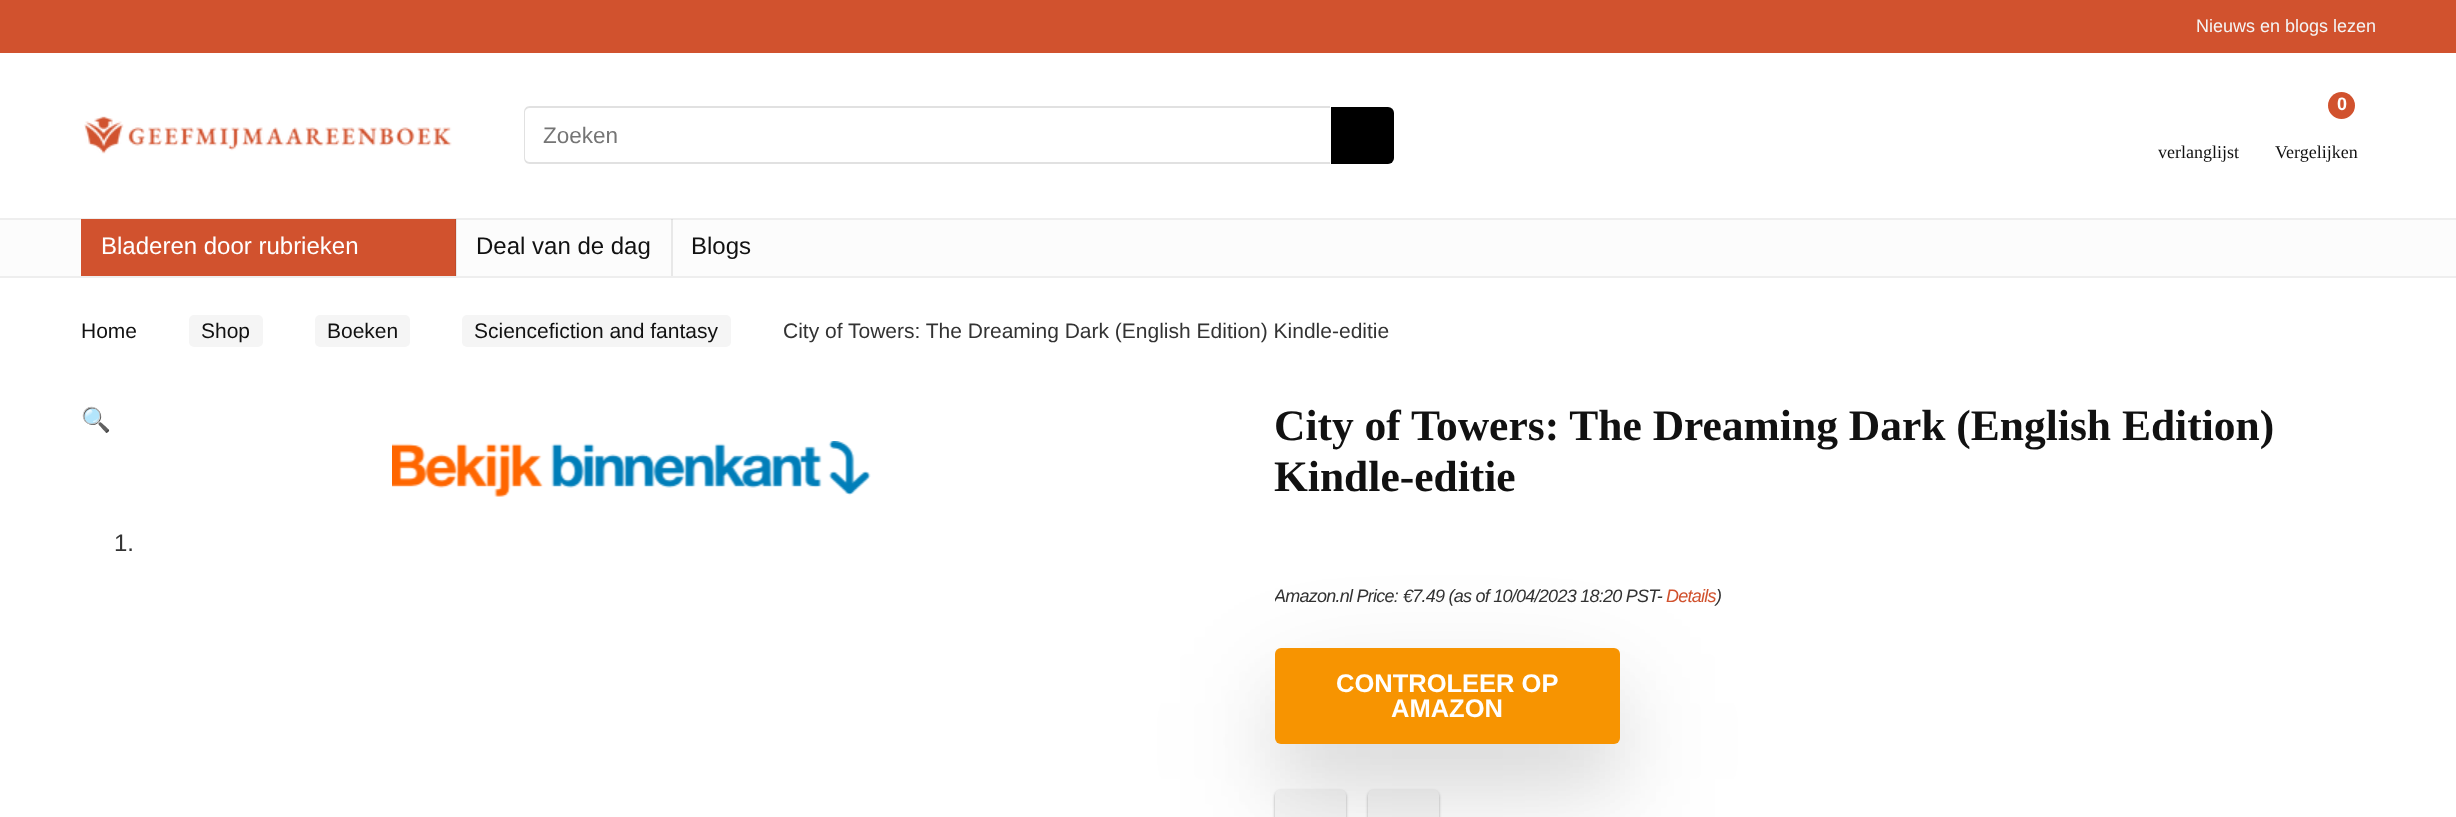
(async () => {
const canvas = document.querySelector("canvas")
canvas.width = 2456
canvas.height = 817
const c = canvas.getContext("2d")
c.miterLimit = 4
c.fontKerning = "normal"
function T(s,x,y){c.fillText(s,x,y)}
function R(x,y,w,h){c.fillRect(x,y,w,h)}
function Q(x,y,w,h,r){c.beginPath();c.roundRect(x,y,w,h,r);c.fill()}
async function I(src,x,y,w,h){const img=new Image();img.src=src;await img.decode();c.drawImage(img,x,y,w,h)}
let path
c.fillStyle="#fff"
R(0,0,2456,817)
c.fillStyle="#d1522e"
R(0,0,2456,53)
c.font="18px Liberation Sans"
c.fillStyle="#f4f4f4"
T("Nieuws en blogs lezen",2196,32)
await I("1.png",84,116,368,38)
c.fillStyle="#e1e1e1"
path = new Path2D("M530 106h800v58h-800c-4 0-6-3-6-6v-46c0-3 2-6 6-6zm0 2h800v54h-800c-3 0-5-2-5-4v-46c0-2 2-4 5-4z")
c.fill(path,"evenodd")
c.font="22.5px Liberation Sans"
c.fillStyle="#757575"
T("Zoeken",543,143)
c.fillStyle="#000"
c.beginPath()
c.roundRect(1331,107,63,57,[0,6,6,0])
c.fill()
c.font="18px Liberation Serif"
c.fillStyle="#111"
T("verlanglijst",2158,158)
c.fillStyle="#d1522e"
c.beginPath()
c.arc(2341.5,105.5,13.5,0,7)
c.fill()
c.font="bold 18px Liberation Sans"
c.fillStyle="#fff"
T("0",2337,110)
c.font="18px Liberation Serif"
c.fillStyle="#111"
T("Vergelijken",2275,158)
c.fillStyle="#fcfcfc"
R(0,220,2456,56)
c.fillStyle="#e8e8e8"
R(671,219,2,57)
R(456,219,1,57)
c.fillStyle="#eee"
R(0,218,2456,2)
c.fillStyle="#dbdbdb"
R(671,219,2,1)
R(455,219,2,1)
c.fillStyle="#eee"
R(0,276,2456,2)
c.fillStyle="#d1522e"
R(81,219,374,57)
c.fillStyle="#c04b2a"
R(455,219,1,57)
c.font="24px Liberation Sans"
c.fillStyle="#fff"
T("Bladeren door rubrieken",101,254)
c.fillStyle="#111"
T("Deal van de dag",476,254)
T("Blogs",691,254)
c.font="21px Liberation Sans"
T("Home",81,338)
c.fillStyle="#f5f5f5"
Q(189,315,74,32,5)
c.fillStyle="#111"
T("Shop",201,338)
c.fillStyle="#f5f5f5"
Q(315,315,95,32,5)
c.fillStyle="#111"
T("Boeken",327,338)
c.fillStyle="#f5f5f5"
Q(462,315,269,32,5)
c.fillStyle="#111"
T("Sciencefiction and fantasy",474,338)
c.fillStyle="#333"
T("City of Towers: The Dreaming Dark (English Edition) Kindle-editie",783,338)
c.font="24px Noto Color Emoji"
c.fillStyle="#d1522e"
T("🔍",81,428)
await I("2.png",392,441,479,56)
c.font="24px Liberation Sans"
c.fillStyle="#333"
T("1.",114,551)
c.font="bold 43.5px Liberation Serif"
c.fillStyle="#111"
T("City of Towers: The Dreaming Dark (English Edition)",1274,440)
T("Kindle-editie",1274,491)
c.save()
c.beginPath()
c.rect(1275,569,1101,64)
c.clip()
c.letterSpacing="-0.75px"
c.font="italic 18px Liberation Sans"
c.fillStyle="#333"
T("Amazon.nl Price:",1274,602)
c.restore()
c.letterSpacing="-0.75px"
c.font="italic 18px Liberation Sans"
c.fillStyle="#333"
T("€7.49 (as of 10/04/2023 18:20 PST-",1403,602)
c.fillStyle="#d1522e"
T("Details",1666,602)
c.fillStyle="#333"
T(")",1716,602)
c.fillStyle="#00000014"
c.filter="blur(1.5px)"
c.beginPath()
c.roundRect(1275,791,71,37,6)
c.fill()
c.filter="none"
c.fillStyle="#3c40434d"
c.filter="blur(1.5px)"
c.beginPath()
c.roundRect(1275,791,71,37,6)
c.fill()
c.filter="none"
c.fillStyle="#f6f6f6"
Q(1275,789,71,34,6)
c.fillStyle="#00000014"
c.filter="blur(1.5px)"
c.beginPath()
c.roundRect(1368,791,71,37,6)
c.fill()
c.filter="none"
c.fillStyle="#3c40434d"
c.filter="blur(1.5px)"
c.beginPath()
c.roundRect(1368,791,71,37,6)
c.fill()
c.filter="none"
c.fillStyle="#f6f6f6"
Q(1368,789,71,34,6)
c.fillStyle="#0000001f"
c.filter="blur(60px)"
c.beginPath()
c.roundRect(1275,693,345,96,6)
c.fill()
c.filter="none"
c.fillStyle="#0000000f"
c.filter="blur(28.5px)"
c.beginPath()
c.roundRect(1275,690,345,96,6)
c.fill()
c.filter="none"
c.fillStyle="#f79401"
Q(1275,648,345,96,6)
c.letterSpacing="0px"
c.font="bold 25.5px Liberation Sans"
c.fillStyle="#fff"
T("CONTROLEER OP",1336,692)
T("AMAZON",1391,717)
})()
